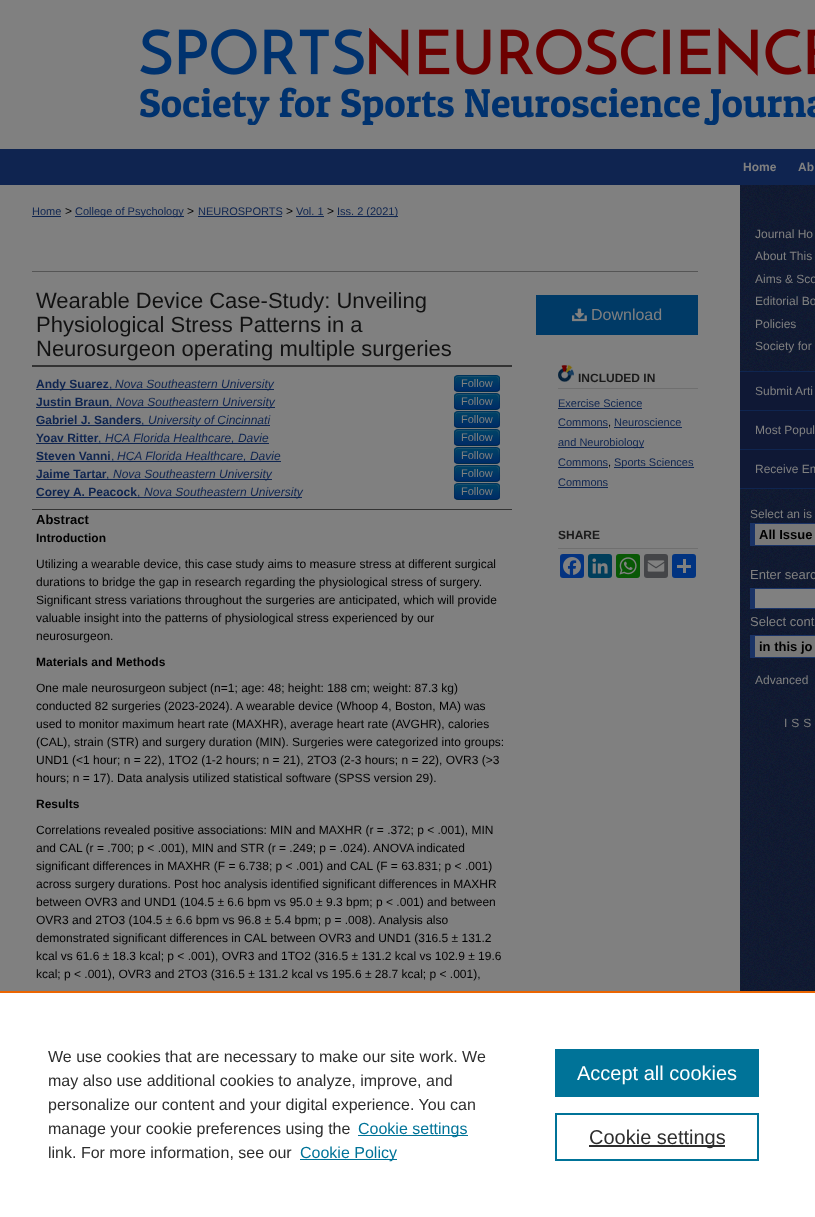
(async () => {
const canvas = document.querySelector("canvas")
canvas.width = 815
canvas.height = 1217
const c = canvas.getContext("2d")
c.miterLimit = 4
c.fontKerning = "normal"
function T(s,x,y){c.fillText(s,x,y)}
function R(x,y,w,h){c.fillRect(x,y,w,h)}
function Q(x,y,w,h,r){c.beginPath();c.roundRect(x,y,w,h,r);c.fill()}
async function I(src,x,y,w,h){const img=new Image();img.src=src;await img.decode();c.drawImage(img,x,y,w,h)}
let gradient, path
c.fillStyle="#fff"
R(0,0,815,1217)
await I("1.png",0,149,815,36)
await I("2.png",0,0,815,149)
c.font="bold 12px Liberation Sans"
c.fillStyle="#808080"
T("Home",743,171)
T("Ab",798,171)
await I("3.png",0,185,815,806)
c.font="11px Liberation Sans"
c.fillStyle="#0f2550"
T("Home",32,215)
R(32,216,29,1)
c.font="12px Liberation Sans"
c.fillStyle="#000"
T(">",65,215)
c.fillStyle="#0f2550"
R(75,216,109,1)
c.font="11px Liberation Sans"
T("College of Psychology",75,215)
c.font="12px Liberation Sans"
c.fillStyle="#000"
T(">",187,215)
c.font="11px Liberation Sans"
c.fillStyle="#0f2550"
T("NEUROSPORTS",198,215)
R(198,216,84,1)
c.font="12px Liberation Sans"
c.fillStyle="#000"
T(">",286,215)
c.font="11px Liberation Sans"
c.fillStyle="#0f2550"
T("Vol. 1",296,215)
R(296,216,28,1)
c.font="12px Liberation Sans"
c.fillStyle="#000"
T(">",327,215)
c.fillStyle="#0f2550"
R(337,216,61,1)
c.font="11px Liberation Sans"
T("Iss. 2 (2021)",337,215)
c.fillStyle="#555"
R(32,271,666,1)
c.font="22px Liberation Sans"
c.fillStyle="#111"
T("Wearable Device Case-Study: Unveiling",36,308)
T("Physiological Stress Patterns in a",36,332)
T("Neurosurgeon operating multiple surgeries",36,356)
c.fillStyle="#333"
R(32,365,480,2)
R(32,509,480,1)
c.fillStyle="#0f2550"
R(36,389,238,1)
c.font="bold 12px Liberation Sans"
T("Andy Suarez",36,388)
c.font="12px Liberation Sans"
T(",",109,388)
c.font="italic 12px Liberation Sans"
T("Nova Southeastern University",115,388)
c.fillStyle="#003a66"
Q(454,375,46,17,4)
c.save()
c.beginPath()
c.roundRect(454,375,46,17,4)
c.clip()
gradient = c.createLinearGradient(477,376,477,391)
gradient.addColorStop(0,"#046")
gradient.addColorStop(1,"#002b66")
c.fillStyle = gradient
R(454,376,46,15)
c.restore()
c.fillStyle="#80808033"
path = new Path2D("M458 377h25c14 0 16-4 16 11c0-11 3-12-9-12h-26c-7 0-9-1-9 6v7c0-3-1-12 3-12z")
c.fill(path)
path = new Path2D("M498.5 390.5c-.5 .5-1.5 1-2.5 1h-38c-1 0-2-.5-2.5-1")
c.strokeStyle="#00000040"
c.stroke(path)
path = new Path2D("M455.5 390.5c-1.5-2-1-5-1-7c0-9 .5-8 10-8h25c9.5 0 10-1 10 8c0 2 .5 5-1 7")
c.strokeStyle="#0000001a"
c.stroke(path)
c.font="11px Liberation Sans"
c.fillStyle="#808080"
T("Follow",461,387)
c.font="bold 12px Liberation Sans"
c.fillStyle="#0f2550"
T("Justin Braun",36,406)
R(36,407,239,1)
c.font="12px Liberation Sans"
T(",",109,406)
c.font="italic 12px Liberation Sans"
T("Nova Southeastern University",116,406)
c.fillStyle="#003a66"
Q(454,393,46,17,4)
c.save()
c.beginPath()
c.roundRect(454,393,46,17,4)
c.clip()
gradient = c.createLinearGradient(477,394,477,409)
gradient.addColorStop(0,"#046")
gradient.addColorStop(1,"#002b66")
c.fillStyle = gradient
R(454,394,46,15)
c.restore()
c.fillStyle="#80808033"
path = new Path2D("M458 395h25c14 0 16-4 16 11c0-11 3-12-9-12h-26c-7 0-9-1-9 6v7c0-3-1-12 3-12z")
c.fill(path)
path = new Path2D("M498.5 408.5c-.5 .5-1.5 1-2.5 1h-38c-1 0-2-.5-2.5-1")
c.strokeStyle="#00000040"
c.stroke(path)
path = new Path2D("M455.5 408.5c-1.5-2-1-5-1-7c0-9 .5-8 10-8h25c9.5 0 10-1 10 8c0 2 .5 5-1 7")
c.strokeStyle="#0000001a"
c.stroke(path)
c.font="11px Liberation Sans"
c.fillStyle="#808080"
T("Follow",461,405)
c.font="bold 12px Liberation Sans"
c.fillStyle="#0f2550"
T("Gabriel J. Sanders",36,424)
R(36,425,234,1)
c.font="12px Liberation Sans"
T(",",141,424)
c.font="italic 12px Liberation Sans"
T("University of Cincinnati",148,424)
c.fillStyle="#003a66"
Q(454,411,46,17,4)
c.save()
c.beginPath()
c.roundRect(454,411,46,17,4)
c.clip()
gradient = c.createLinearGradient(477,412,477,427)
gradient.addColorStop(0,"#046")
gradient.addColorStop(1,"#002b66")
c.fillStyle = gradient
R(454,412,46,15)
c.restore()
c.fillStyle="#80808033"
path = new Path2D("M458 413h25c14 0 16-4 16 11c0-11 3-12-9-12h-26c-7 0-9-1-9 6v7c0-3-1-12 3-12z")
c.fill(path)
path = new Path2D("M498.5 426.5c-.5 .5-1.5 1-2.5 1h-38c-1 0-2-.5-2.5-1")
c.strokeStyle="#00000040"
c.stroke(path)
path = new Path2D("M455.5 426.5c-1.5-2-1-5-1-7c0-9 .5-8 10-8h25c9.5 0 10-1 10 8c0 2 .5 5-1 7")
c.strokeStyle="#0000001a"
c.stroke(path)
c.font="11px Liberation Sans"
c.fillStyle="#808080"
T("Follow",461,423)
c.font="bold 12px Liberation Sans"
c.fillStyle="#0f2550"
T("Yoav Ritter",36,442)
R(36,443,233,1)
c.font="12px Liberation Sans"
T(",",98,442)
c.font="italic 12px Liberation Sans"
T("HCA Florida Healthcare, Davie",105,442)
c.fillStyle="#003a66"
Q(454,429,46,17,4)
c.save()
c.beginPath()
c.roundRect(454,429,46,17,4)
c.clip()
gradient = c.createLinearGradient(477,430,477,445)
gradient.addColorStop(0,"#046")
gradient.addColorStop(1,"#002b66")
c.fillStyle = gradient
R(454,430,46,15)
c.restore()
c.fillStyle="#80808033"
path = new Path2D("M458 431h25c14 0 16-4 16 11c0-11 3-12-9-12h-26c-7 0-9-1-9 6v7c0-3-1-12 3-12z")
c.fill(path)
path = new Path2D("M498.5 444.5c-.5 .5-1.5 1-2.5 1h-38c-1 0-2-.5-2.5-1")
c.strokeStyle="#00000040"
c.stroke(path)
path = new Path2D("M455.5 444.5c-1.5-2-1-5-1-7c0-9 .5-8 10-8h25c9.5 0 10-1 10 8c0 2 .5 5-1 7")
c.strokeStyle="#0000001a"
c.stroke(path)
c.font="11px Liberation Sans"
c.fillStyle="#808080"
T("Follow",461,441)
c.font="bold 12px Liberation Sans"
c.fillStyle="#0f2550"
T("Steven Vanni",36,460)
R(36,461,245,1)
c.font="12px Liberation Sans"
T(",",111,460)
c.font="italic 12px Liberation Sans"
T("HCA Florida Healthcare, Davie",117,460)
c.fillStyle="#003a66"
Q(454,447,46,17,4)
c.save()
c.beginPath()
c.roundRect(454,447,46,17,4)
c.clip()
gradient = c.createLinearGradient(477,448,477,463)
gradient.addColorStop(0,"#046")
gradient.addColorStop(1,"#002b66")
c.fillStyle = gradient
R(454,448,46,15)
c.restore()
c.fillStyle="#80808033"
path = new Path2D("M458 449h25c14 0 16-4 16 11c0-11 3-12-9-12h-26c-7 0-9-1-9 6v7c0-3-1-12 3-12z")
c.fill(path)
path = new Path2D("M498.5 462.5c-.5 .5-1.5 1-2.5 1h-38c-1 0-2-.5-2.5-1")
c.strokeStyle="#00000040"
c.stroke(path)
path = new Path2D("M455.5 462.5c-1.5-2-1-5-1-7c0-9 .5-8 10-8h25c9.5 0 10-1 10 8c0 2 .5 5-1 7")
c.strokeStyle="#0000001a"
c.stroke(path)
c.font="11px Liberation Sans"
c.fillStyle="#808080"
T("Follow",461,459)
c.font="bold 12px Liberation Sans"
c.fillStyle="#0f2550"
T("Jaime Tartar",36,478)
R(36,479,236,1)
c.font="12px Liberation Sans"
T(",",106,478)
c.font="italic 12px Liberation Sans"
T("Nova Southeastern University",113,478)
c.fillStyle="#003a66"
Q(454,465,46,17,4)
c.save()
c.beginPath()
c.roundRect(454,465,46,17,4)
c.clip()
gradient = c.createLinearGradient(477,466,477,481)
gradient.addColorStop(0,"#046")
gradient.addColorStop(1,"#002b66")
c.fillStyle = gradient
R(454,466,46,15)
c.restore()
c.fillStyle="#80808033"
path = new Path2D("M458 467h25c14 0 16-4 16 11c0-11 3-12-9-12h-26c-7 0-9-1-9 6v7c0-3-1-12 3-12z")
c.fill(path)
path = new Path2D("M498.5 480.5c-.5 .5-1.5 1-2.5 1h-38c-1 0-2-.5-2.5-1")
c.strokeStyle="#00000040"
c.stroke(path)
path = new Path2D("M455.5 480.5c-1.5-2-1-5-1-7c0-9 .5-8 10-8h25c9.5 0 10-1 10 8c0 2 .5 5-1 7")
c.strokeStyle="#0000001a"
c.stroke(path)
c.font="11px Liberation Sans"
c.fillStyle="#808080"
T("Follow",461,477)
c.fillStyle="#0f2550"
R(36,497,266,1)
c.font="bold 12px Liberation Sans"
T("Corey A. Peacock",36,496)
c.font="12px Liberation Sans"
T(",",137,496)
c.font="italic 12px Liberation Sans"
T("Nova Southeastern University",144,496)
c.fillStyle="#003a66"
Q(454,483,46,17,4)
c.save()
c.beginPath()
c.roundRect(454,483,46,17,4)
c.clip()
gradient = c.createLinearGradient(477,484,477,499)
gradient.addColorStop(0,"#046")
gradient.addColorStop(1,"#002b66")
c.fillStyle = gradient
R(454,484,46,15)
c.restore()
c.fillStyle="#80808033"
path = new Path2D("M458 485h25c14 0 16-4 16 11c0-11 3-12-9-12h-26c-7 0-9-1-9 6v7c0-3-1-12 3-12z")
c.fill(path)
path = new Path2D("M498.5 498.5c-.5 .5-1.5 1-2.5 1h-38c-1 0-2-.5-2.5-1")
c.strokeStyle="#00000040"
c.stroke(path)
path = new Path2D("M455.5 498.5c-1.5-2-1-5-1-7c0-9 .5-8 10-8h25c9.5 0 10-1 10 8c0 2 .5 5-1 7")
c.strokeStyle="#0000001a"
c.stroke(path)
c.font="11px Liberation Sans"
c.fillStyle="#808080"
T("Follow",461,495)
c.font="bold 13px Liberation Sans"
c.fillStyle="#000"
T("Abstract",36,524)
c.font="bold 12px Liberation Sans"
T("Introduction",36,542)
c.font="12px Liberation Sans"
T("Utilizing a wearable device, this case study aims to measure stress at different surgical",36,568)
T("durations to bridge the gap in research regarding the physiological stress of surgery.",36,586)
T("Significant stress variations throughout the surgeries are anticipated, which will provide",36,604)
T("valuable insight into the patterns of physiological stress experienced by our",36,622)
T("neurosurgeon.",36,640)
c.font="bold 12px Liberation Sans"
T("Materials and Methods",36,666)
c.font="12px Liberation Sans"
T("One male neurosurgeon subject (n=1; age: 48; height: 188 cm; weight: 87.3 kg)",36,692)
T("conducted 82 surgeries (2023-2024). A wearable device (Whoop 4, Boston, MA) was",36,710)
T("used to monitor maximum heart rate (MAXHR), average heart rate (AVGHR), calories",36,728)
T("(CAL), strain (STR) and surgery duration (MIN). Surgeries were categorized into groups:",36,746)
T("UND1 (<1 hour; n = 22), 1TO2 (1-2 hours; n = 21), 2TO3 (2-3 hours; n = 22), OVR3 (>3",36,764)
T("hours; n = 17). Data analysis utilized statistical software (SPSS version 29).",36,782)
c.font="bold 12px Liberation Sans"
T("Results",36,808)
c.font="12px Liberation Sans"
T("Correlations revealed positive associations: MIN and MAXHR (r = .372; p < .001), MIN",36,834)
T("and CAL (r = .700; p < .001), MIN and STR (r = .249; p = .024). ANOVA indicated",36,852)
T("significant differences in MAXHR (F = 6.738; p < .001) and CAL (F = 63.831; p < .001)",36,870)
T("across surgery durations. Post hoc analysis identified significant differences in MAXHR",36,888)
T("between OVR3 and UND1 (104.5 ± 6.6 bpm vs 95.0 ± 9.3 bpm; p < .001) and between",36,906)
T("OVR3 and 2TO3 (104.5 ± 6.6 bpm vs 96.8 ± 5.4 bpm; p = .008). Analysis also",36,924)
T("demonstrated significant differences in CAL between OVR3 and UND1 (316.5 ± 131.2",36,942)
T("kcal vs 61.6 ± 18.3 kcal; p < .001), OVR3 and 1TO2 (316.5 ± 131.2 kcal vs 102.9 ± 19.6",36,960)
T("kcal; p < .001), OVR3 and 2TO3 (316.5 ± 131.2 kcal vs 195.6 ± 28.7 kcal; p < .001),",36,978)
c.fillStyle="#003a66"
R(536,295,162,40)
await I("4.png",572,308,15,14)
c.font="16px Liberation Sans"
c.fillStyle="#808080"
T("Download",591,320)
await I("5.png",558,365,16,17)
c.fillStyle="#6f6f6f"
R(558,388,140,1)
c.font="bold 12px Liberation Sans"
c.fillStyle="#1a1a1a"
T("INCLUDED IN",578,382)
c.font="11px Liberation Sans"
c.fillStyle="#0f2550"
T("Exercise Science",558,407)
R(558,408,84,1)
T("Commons",558,426)
R(558,427,50,1)
c.fillStyle="#000"
T(",",608,426)
c.fillStyle="#0f2550"
T("Neuroscience",614,426)
R(614,427,68,1)
R(558,447,86,1)
T("and Neurobiology",558,446)
T("Commons",558,466)
R(558,467,50,1)
c.fillStyle="#000"
T(",",608,466)
c.fillStyle="#0f2550"
R(614,467,80,1)
T("Sports Sciences",614,466)
T("Commons",558,486)
R(558,487,50,1)
c.fillStyle="#6f6f6f"
R(558,548,140,1)
c.font="bold 12px Liberation Sans"
c.fillStyle="#1a1a1a"
T("SHARE",558,539)
c.fillStyle="#043380"
Q(560,554,24,24,3)
await I("6.png",563,557,18,18)
c.fillStyle="#003e5b"
Q(588,554,24,24,3)
await I("7.png",592,558,16,16)
c.fillStyle="#095805"
Q(616,554,24,24,3)
await I("8.png",619,557,18,18)
c.fillStyle="#444548"
Q(644,554,24,24,3)
await I("9.png",647,560,18,12)
c.fillStyle="#013380"
Q(672,554,24,24,3)
c.fillStyle="#808080"
R(683,559,3,14)
R(677,565,14,3)
c.font="12px Liberation Sans"
T("Journal Ho",755,238)
T("About This",755,260)
T("Aims & Sco",755,283)
T("Editorial Bo",755,305)
T("Policies",755,328)
T("Society for",755,350)
c.fillStyle="#0f1835"
R(740,372,75,38)
c.fillStyle="#0f2550"
R(740,371,75,1)
R(740,410,75,1)
c.fillStyle="#808080"
T("Submit Arti",755,395)
c.fillStyle="#0f1835"
R(740,411,75,38)
c.fillStyle="#0f2550"
R(740,449,75,1)
c.fillStyle="#808080"
T("Most Popul",755,434)
c.fillStyle="#0f1835"
R(740,450,75,38)
c.fillStyle="#0f2550"
R(740,488,75,1)
c.fillStyle="#808080"
T("Receive Em",755,473)
T("Select an is",750,518)
c.fillStyle="#787878"
R(755,524,60,21)
c.fillStyle="#1a3366"
R(750,523,65,1)
R(750,545,65,1)
R(750,523,5,23)
c.font="bold 13px Liberation Sans"
c.fillStyle="#000"
T("All Issue",759,539)
c.font="13px Liberation Sans"
c.fillStyle="#808080"
T("Enter searc",750,579)
R(755,589,60,19)
c.fillStyle="#1a3366"
R(750,588,65,1)
R(750,608,65,1)
R(750,588,5,21)
c.fillStyle="#808080"
T("Select cont",750,626)
c.fillStyle="#787878"
R(755,636,60,21)
c.fillStyle="#1a3366"
R(750,635,65,1)
R(750,657,65,1)
R(750,635,5,23)
c.font="bold 13px Liberation Sans"
c.fillStyle="#000"
T("in this jo",759,651)
c.font="12px Liberation Sans"
c.fillStyle="#808080"
T("Advanced",755,684)
c.letterSpacing="4px"
T("ISS",784,727)
c.fillStyle="#eb6500"
R(0,991,815,2)
c.letterSpacing="0px"
c.font="16px Liberation Sans"
c.fillStyle="#2e2e2e"
T("We use cookies that are necessary to make our site work. We",48,1062)
T("may also use additional cookies to analyze, improve, and",48,1086)
T("personalize our content and your digital experience. You can",48,1110)
T("manage your cookie preferences using the",48,1134)
c.fillStyle="#007398"
R(358,1135,110,1)
T("Cookie settings",358,1134)
c.fillStyle="#2e2e2e"
T("link. For more information, see our",48,1158)
c.fillStyle="#007398"
R(300,1159,97,1)
T("Cookie Policy",300,1158)
R(555,1049,204,48)
c.font="20px Liberation Sans"
c.fillStyle="#fff"
T("Accept all cookies",577,1080)
c.strokeStyle="#007398"
c.lineWidth=2
c.strokeRect(556,1114,202,46)
c.fillStyle="#2e2e2e"
R(589,1145,136,2)
T("Cookie settings",589,1144)
})()
